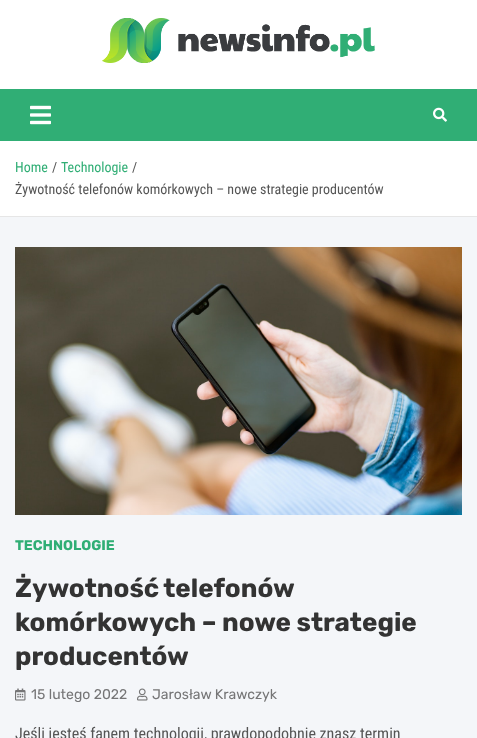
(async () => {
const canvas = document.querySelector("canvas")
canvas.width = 477
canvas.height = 738
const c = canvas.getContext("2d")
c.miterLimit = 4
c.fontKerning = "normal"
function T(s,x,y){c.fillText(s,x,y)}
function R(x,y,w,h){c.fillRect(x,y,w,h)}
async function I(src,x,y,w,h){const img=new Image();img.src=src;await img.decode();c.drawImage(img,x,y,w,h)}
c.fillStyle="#f4f6f9"
R(0,0,477,738)
c.fillStyle="#fff"
R(0,0,477,89)
await I("1.png",102,18,273,45)
c.fillStyle="#30ae75"
R(0,89,477,52)
await I("2.png",30,105,21,20)
await I("3.png",433,107,14,15)
c.fillStyle="#fff"
R(0,141,477,75)
c.fillStyle="#e6e6e6"
R(0,216,477,1)
c.font="14px Roboto Condensed"
c.fillStyle="#30ae75"
T("Home",15,172)
c.fillStyle="#555"
T("/",52,172)
c.fillStyle="#30ae75"
T("Technologie",61,172)
c.fillStyle="#555"
T("/",132,172)
T("Żywotność telefonów komórkowych – nowe strategie producentów",15,194)
await I("4.png",15,247,447,268)
c.font="bold 14px Rubik"
c.fillStyle="#30ae75"
T("TECHNOLOGIE",15,550)
c.wordSpacing="-1px"
c.font="bold 26px Rubik"
c.fillStyle="#333"
T("Żywotność telefonów",15,597)
c.wordSpacing="0px"
T("komórkowych – nowe strategie",15,631)
T("producentów",15,665)
await I("5.png",15,688,11,13)
c.font="14px Rubik"
c.fillStyle="#757576"
T("15 lutego 2022",31,699)
await I("6.png",137,688,11,13)
T("Jarosław Krawczyk",152,699)
c.font="16px Roboto Condensed"
c.fillStyle="#555"
T("Jeśli jesteś fanem technologii, prawdopodobnie znasz termin",15,739)
})()
